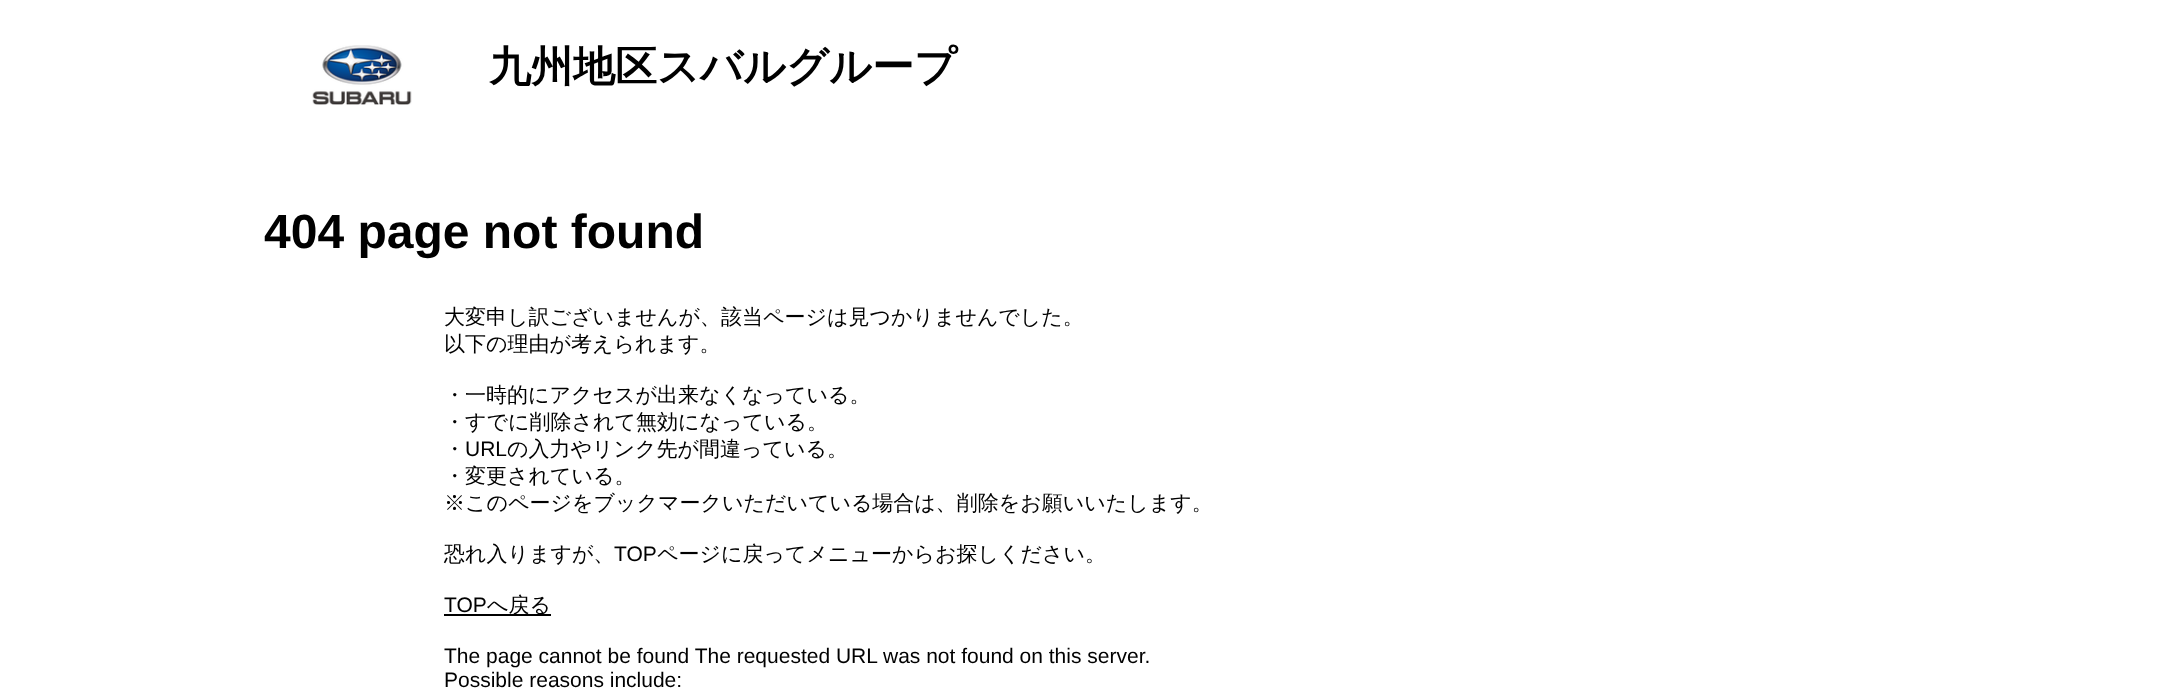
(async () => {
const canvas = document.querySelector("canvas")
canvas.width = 2162
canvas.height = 700
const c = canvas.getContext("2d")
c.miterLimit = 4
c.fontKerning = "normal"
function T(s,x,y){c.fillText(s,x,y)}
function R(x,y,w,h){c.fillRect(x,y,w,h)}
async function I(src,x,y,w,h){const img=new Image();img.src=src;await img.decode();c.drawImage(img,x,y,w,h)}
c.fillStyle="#fff"
R(0,0,2162,700)
await I("1.png",312,45,100,60)
c.font="bold 42px WenQuanYi Zen Hei"
c.fillStyle="#000"
T("九州地区スバルグループ",489,81)
c.font="bold 48px Liberation Sans"
T("404 page not found",264,248)
c.font="500 21px WenQuanYi Zen Hei"
T("大変申し訳ございませんが、該当ページは見つかりませんでした。",444,324)
T("以下の理由が考えられます。",444,351)
T("・一時的にアクセスが出来なくなっている。",444,402)
T("・すでに削除されて無効になっている。",444,429)
T("・",444,456)
c.font="21px Liberation Sans"
T("URL",465,456)
c.font="500 21px WenQuanYi Zen Hei"
T("の入力やリンク先が間違っている。",507,456)
T("・変更されている。",444,483)
T("※このページをブックマークいただいている場合は、削除をお願いいたします。",444,510)
T("恐れ入りますが、",444,561)
c.font="21px Liberation Sans"
T("TOP",614,561)
c.font="500 21px WenQuanYi Zen Hei"
T("ページに戻ってメニューからお探しください。",657,561)
c.font="21px Liberation Sans"
T("TOP",444,612)
R(444,614,107,2)
c.font="500 21px WenQuanYi Zen Hei"
T("へ戻る",487,612)
c.font="21px Liberation Sans"
T("The page cannot be found The requested URL was not found on this server.",444,663)
T("Possible reasons include:",444,687)
})()
